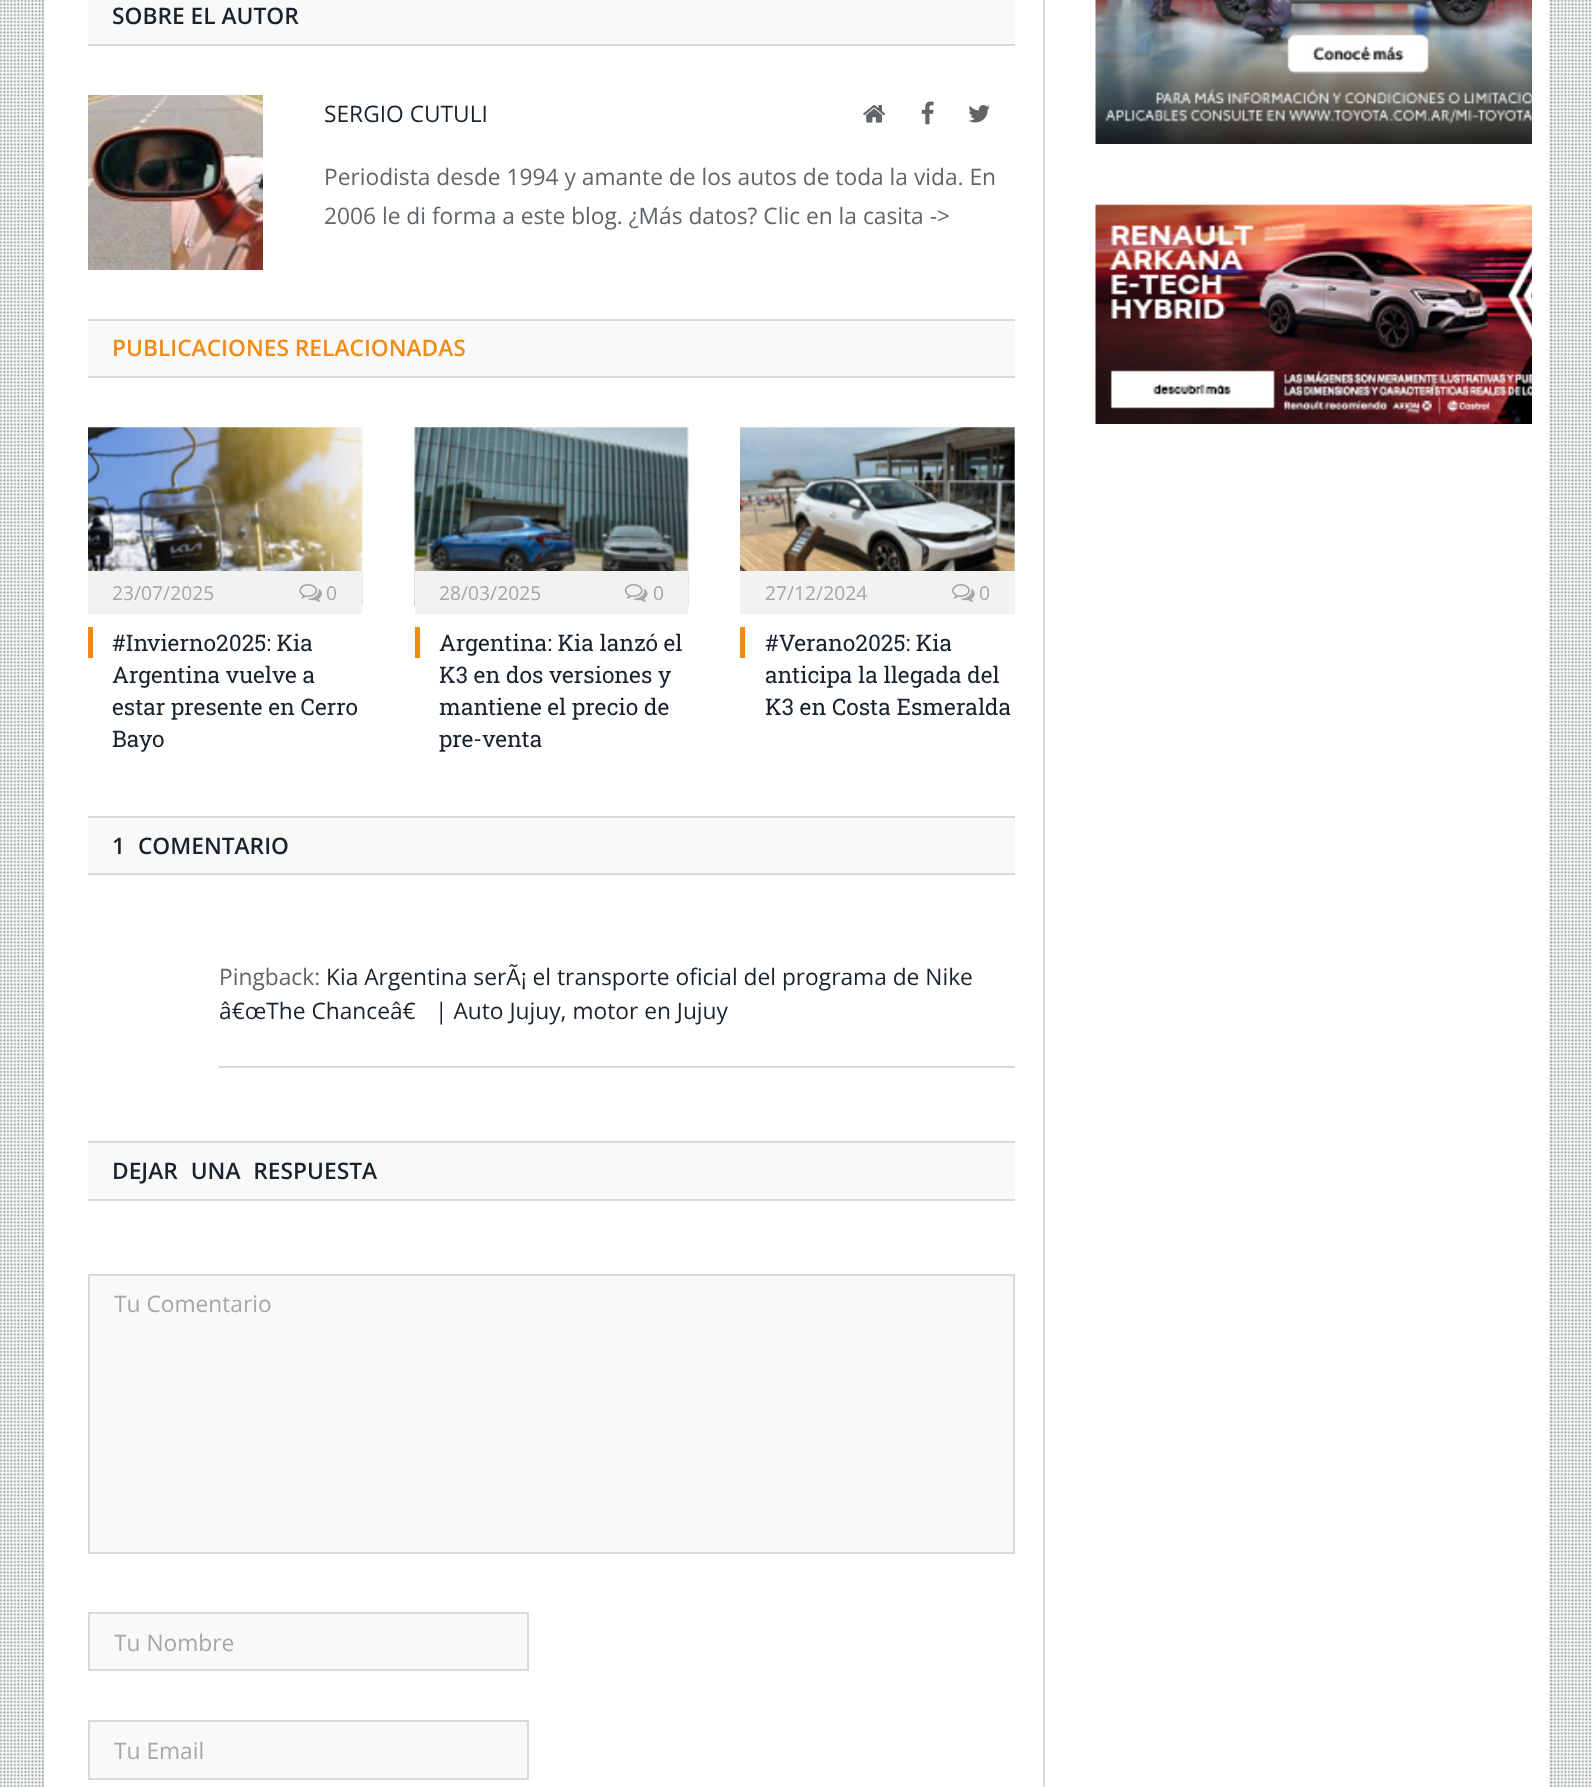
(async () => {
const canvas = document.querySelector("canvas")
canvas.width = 1592
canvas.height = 1787
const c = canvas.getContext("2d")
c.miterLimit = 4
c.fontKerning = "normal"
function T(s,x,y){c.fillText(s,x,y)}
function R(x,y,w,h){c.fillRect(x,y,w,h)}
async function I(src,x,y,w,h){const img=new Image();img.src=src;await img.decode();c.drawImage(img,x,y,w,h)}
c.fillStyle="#fff"
R(0,0,1592,1787)
await I("1.png",0,0,1592,1787)
c.fillStyle="#0000001f"
c.filter="blur(2.5px)"
c.beginPath()
c.rect(44,-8,1505,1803)
c.fill()
c.filter="none"
c.fillStyle="#fff"
R(44,0,1505,1787)
c.fillStyle="#f9f9f9"
R(88,0,927,44)
c.fillStyle="#d9d9d9"
R(88,44,927,2)
c.font="600 22.75px Open Sans"
c.fillStyle="#19232d"
T("SOBRE EL AUTOR",112,24)
await I("2.png",88,95,175,175)
c.font="22.75px Open Sans"
T("SERGIO CUTULI",324,122)
await I("3.png",863,105,23,18)
await I("4.png",921,101,13,24)
await I("5.png",968,105,22,18)
c.fillStyle="#606569"
T("Periodista desde 1994 y amante de los autos de toda la vida. En",324,185)
T("2006 le di forma a este blog. ¿Más datos? Clic en la casita ->",324,224)
c.fillStyle="#f9f9f9"
R(88,321,927,55)
c.fillStyle="#d9d9d9"
R(88,319,927,2)
R(88,376,927,2)
c.font="600 22.75px Open Sans"
c.fillStyle="#f38a15"
T("PUBLICACIONES RELACIONADAS",112,356)
await I("6.png",88,427,275,180)
c.fillStyle="#f2f2f2"
R(88,571,274,43)
c.font="19.25px Open Sans"
c.fillStyle="#a6a6a6"
T("23/07/2025",112,600)
await I("7.png",299,584,23,18)
T("0",326,600)
c.fillStyle="#f38a15"
R(88,627,5,31)
c.font="22.75px Roboto Slab"
c.fillStyle="#19232d"
T("#Invierno2025: Kia",112,651)
T("Argentina vuelve a",112,683)
T("estar presente en Cerro",112,715)
T("Bayo",112,747)
await I("8.png",414,427,275,180)
c.fillStyle="#f2f2f2"
R(415,571,273,43)
c.font="19.25px Open Sans"
c.fillStyle="#a6a6a6"
T("28/03/2025",439,600)
await I("9.png",624,584,24,18)
T("0",653,600)
c.fillStyle="#f38a15"
R(415,627,5,31)
c.font="22.75px Roboto Slab"
c.fillStyle="#19232d"
T("Argentina: Kia lanzó el",439,651)
T("K3 en dos versiones y",439,683)
T("mantiene el precio de",439,715)
T("pre-venta",439,747)
await I("10.png",740,427,275,144)
c.fillStyle="#f2f2f2"
R(740,571,275,43)
c.font="19.25px Open Sans"
c.fillStyle="#a6a6a6"
T("27/12/2024",765,600)
await I("11.png",952,584,23,18)
T("0",979,600)
c.fillStyle="#f38a15"
R(740,627,5,31)
c.font="22.75px Roboto Slab"
c.fillStyle="#19232d"
T("#Verano2025: Kia",765,651)
T("anticipa la llegada del",765,683)
T("K3 en Costa Esmeralda",765,715)
c.fillStyle="#f9f9f9"
R(88,818,927,55)
c.fillStyle="#d9d9d9"
R(88,816,927,2)
R(88,873,927,2)
c.wordSpacing="7px"
c.font="600 22.75px Open Sans"
c.fillStyle="#19232d"
T("1 COMENTARIO",112,854)
c.fillStyle="#d9d9d9"
R(219,1066,796,2)
c.wordSpacing="0px"
c.font="22.75px Open Sans"
c.fillStyle="#606569"
T("Pingback:",219,985)
c.fillStyle="#19232d"
T("Kia Argentina serÃ¡ el transporte oficial del programa de Nike",326,985)
T("â€œThe Chanceâ€",219,1019)
T("| Auto Jujuy, motor en Jujuy",435,1019)
c.fillStyle="#f9f9f9"
R(88,1143,927,56)
c.fillStyle="#d9d9d9"
R(88,1141,927,2)
R(88,1199,927,2)
c.wordSpacing="7px"
c.font="600 22.75px Open Sans"
c.fillStyle="#19232d"
T("DEJAR UNA RESPUESTA",112,1179)
c.fillStyle="#f9f9f9"
c.beginPath()
c.rect(89,1275,925,278)
c.fill()
c.strokeStyle="#d9d9d9"
c.lineWidth=2
c.stroke()
c.wordSpacing="0px"
c.font="22.75px Open Sans"
c.fillStyle="#a6a6a6"
T("Tu Comentario",114,1312)
c.fillStyle="#f9f9f9"
c.beginPath()
c.rect(89,1613,439,57)
c.fill()
c.stroke()
c.fillStyle="#a6a6a6"
T("Tu Nombre",114,1651)
c.fillStyle="#f9f9f9"
c.beginPath()
c.rect(89,1721,439,58)
c.fill()
c.stroke()
c.fillStyle="#a6a6a6"
T("Tu Email",114,1759)
c.fillStyle="#d9d9d9"
R(1043,0,2,1787)
await I("12.png",1095,0,437,144)
await I("13.png",1095,204,437,220)
})()
